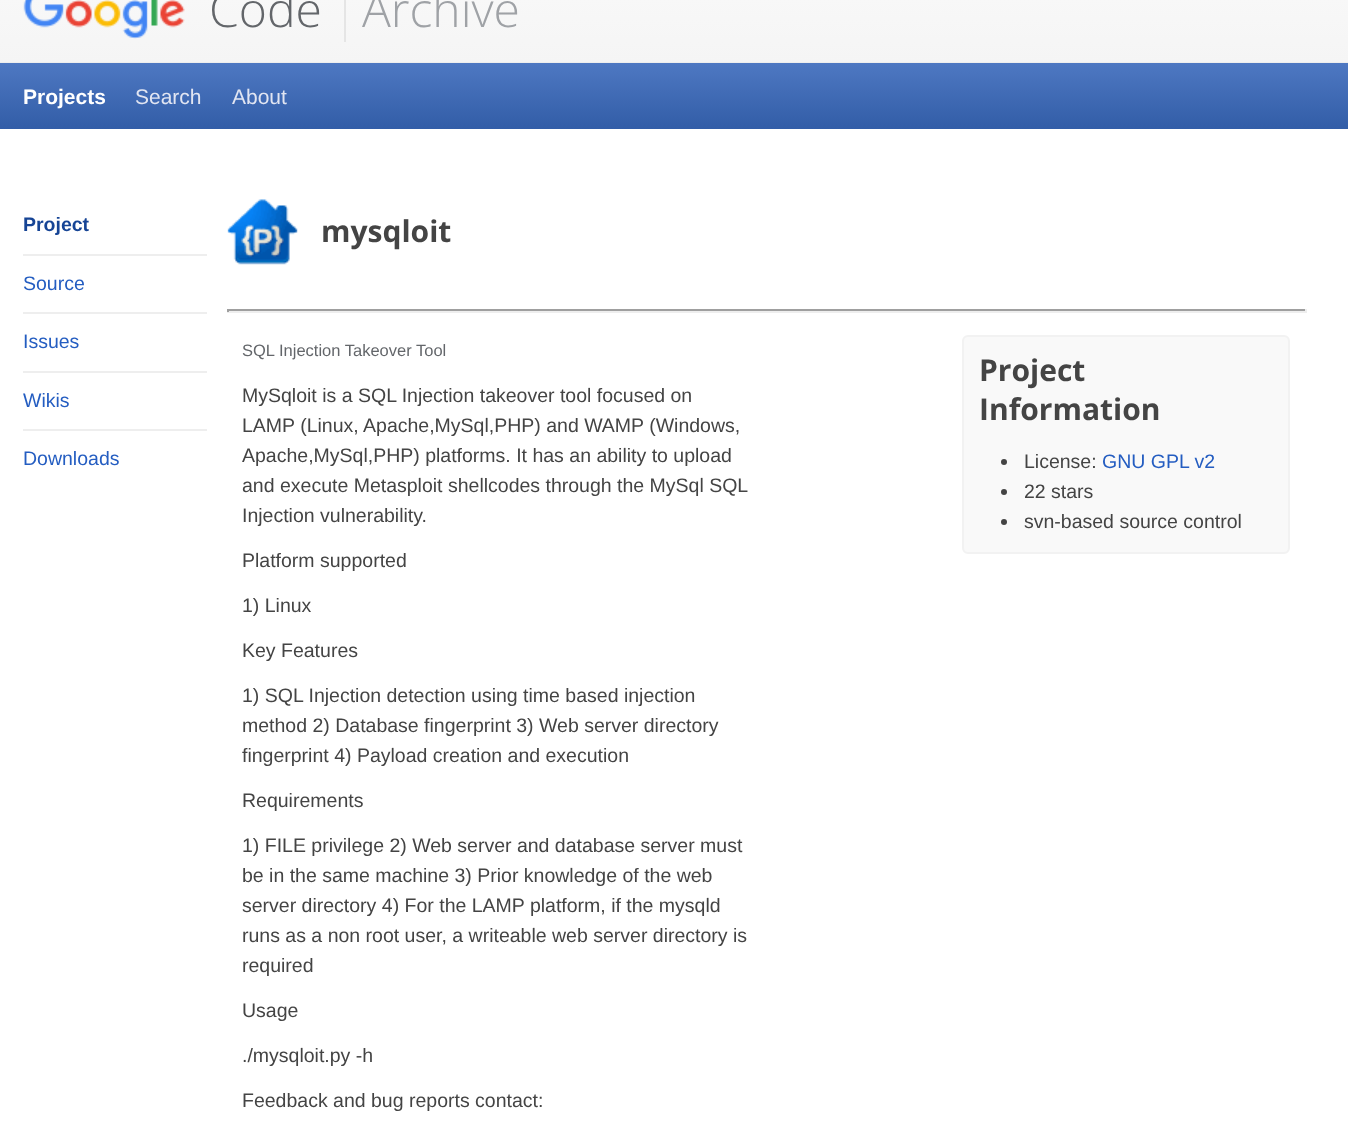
(async () => {
const canvas = document.querySelector("canvas")
canvas.width = 1348
canvas.height = 1124
const c = canvas.getContext("2d")
c.miterLimit = 4
c.fontKerning = "normal"
function T(s,x,y){c.fillText(s,x,y)}
function R(x,y,w,h){c.fillRect(x,y,w,h)}
async function I(src,x,y,w,h){const img=new Image();img.src=src;await img.decode();c.drawImage(img,x,y,w,h)}
let gradient
c.fillStyle="#fff"
R(0,0,1348,1124)
gradient = c.createLinearGradient(0,-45,0,62)
gradient.addColorStop(0,"#fafafa")
gradient.addColorStop(1,"#f5f5f5")
c.fillStyle = gradient
R(0,0,1348,62)
c.fillStyle="#eee"
R(0,62,1348,1)
await I("1.png",23,0,162,39)
c.font="300 48px Open Sans"
c.fillStyle="#63666a"
T("Code",209,27)
c.fillStyle="#e5e5e5"
R(344,0,2,42)
c.fillStyle="#9fa2a6"
T("Archive",362,27)
gradient = c.createLinearGradient(0,63,0,129)
gradient.addColorStop(0,"#4e78c2")
gradient.addColorStop(1,"#325da7")
c.fillStyle = gradient
R(0,63,1348,66)
c.font="bold 21px Liberation Sans"
c.fillStyle="#fff"
T("Projects",23,104)
c.font="21px Liberation Sans"
c.fillStyle="#e1e5f2"
T("Search",135,104)
T("About",232,104)
c.fillStyle="#eee"
R(23,254,184,2)
c.font="bold 19.5px Liberation Sans"
c.fillStyle="#164495"
T("Project",23,231)
c.fillStyle="#eee"
R(23,312,184,2)
c.font="19.5px Liberation Sans"
c.fillStyle="#245dc1"
T("Source",23,290)
c.fillStyle="#eee"
R(23,371,184,2)
c.fillStyle="#245dc1"
T("Issues",23,348)
c.fillStyle="#eee"
R(23,429,184,2)
c.fillStyle="#245dc1"
T("Wikis",23,407)
T("Downloads",23,465)
await I("2.png",227,199,71,66)
c.font="bold 30px Open Sans"
c.fillStyle="#444"
T("mysqloit",321,242)
c.fillStyle="#9f9f9f"
R(227,309,1080,2)
c.fillStyle="#eee"
R(1305,309,2,3)
R(227,311,1080,2)
c.fillStyle="#9f9f9f"
R(227,309,2,3)
c.font="16.5px Liberation Sans"
c.fillStyle="#63666a"
T("SQL Injection Takeover Tool",242,356)
c.font="19.5px Liberation Sans"
c.fillStyle="#444"
T("MySqloit is a SQL Injection takeover tool focused on",242,402)
T("LAMP (Linux, Apache,MySql,PHP) and WAMP (Windows,",242,432)
T("Apache,MySql,PHP) platforms. It has an ability to upload",242,462)
T("and execute Metasploit shellcodes through the MySql SQL",242,492)
T("Injection vulnerability.",242,522)
T("Platform supported",242,567)
T("1) Linux",242,612)
T("Key Features",242,657)
T("1) SQL Injection detection using time based injection",242,702)
T("method 2) Database fingerprint 3) Web server directory",242,732)
T("fingerprint 4) Payload creation and execution",242,762)
T("Requirements",242,807)
T("1) FILE privilege 2) Web server and database server must",242,852)
T("be in the same machine 3) Prior knowledge of the web",242,882)
T("server directory 4) For the LAMP platform, if the mysqld",242,912)
T("runs as a non root user, a writeable web server directory is",242,942)
T("required",242,972)
T("Usage",242,1017)
T("./mysqloit.py -h",242,1062)
T("Feedback and bug reports contact:",242,1107)
c.fillStyle="#f9f9f9"
c.beginPath()
c.roundRect(963,336,326,217,5)
c.fill()
c.strokeStyle="#f2f2f2"
c.lineWidth=2
c.stroke()
c.font="bold 30px Open Sans"
c.fillStyle="#444"
T("Project",979,381)
T("Information",979,420)
c.beginPath()
c.arc(1004,462,3,0,7)
c.fill()
c.font="19.5px Liberation Sans"
T("License:",1024,468)
c.fillStyle="#245dc1"
T("GNU GPL v2",1102,468)
c.fillStyle="#444"
c.beginPath()
c.arc(1004,492,3,0,7)
c.fill()
T("22 stars",1024,498)
c.beginPath()
c.arc(1004,522,3,0,7)
c.fill()
T("svn-based source control",1024,528)
})()
